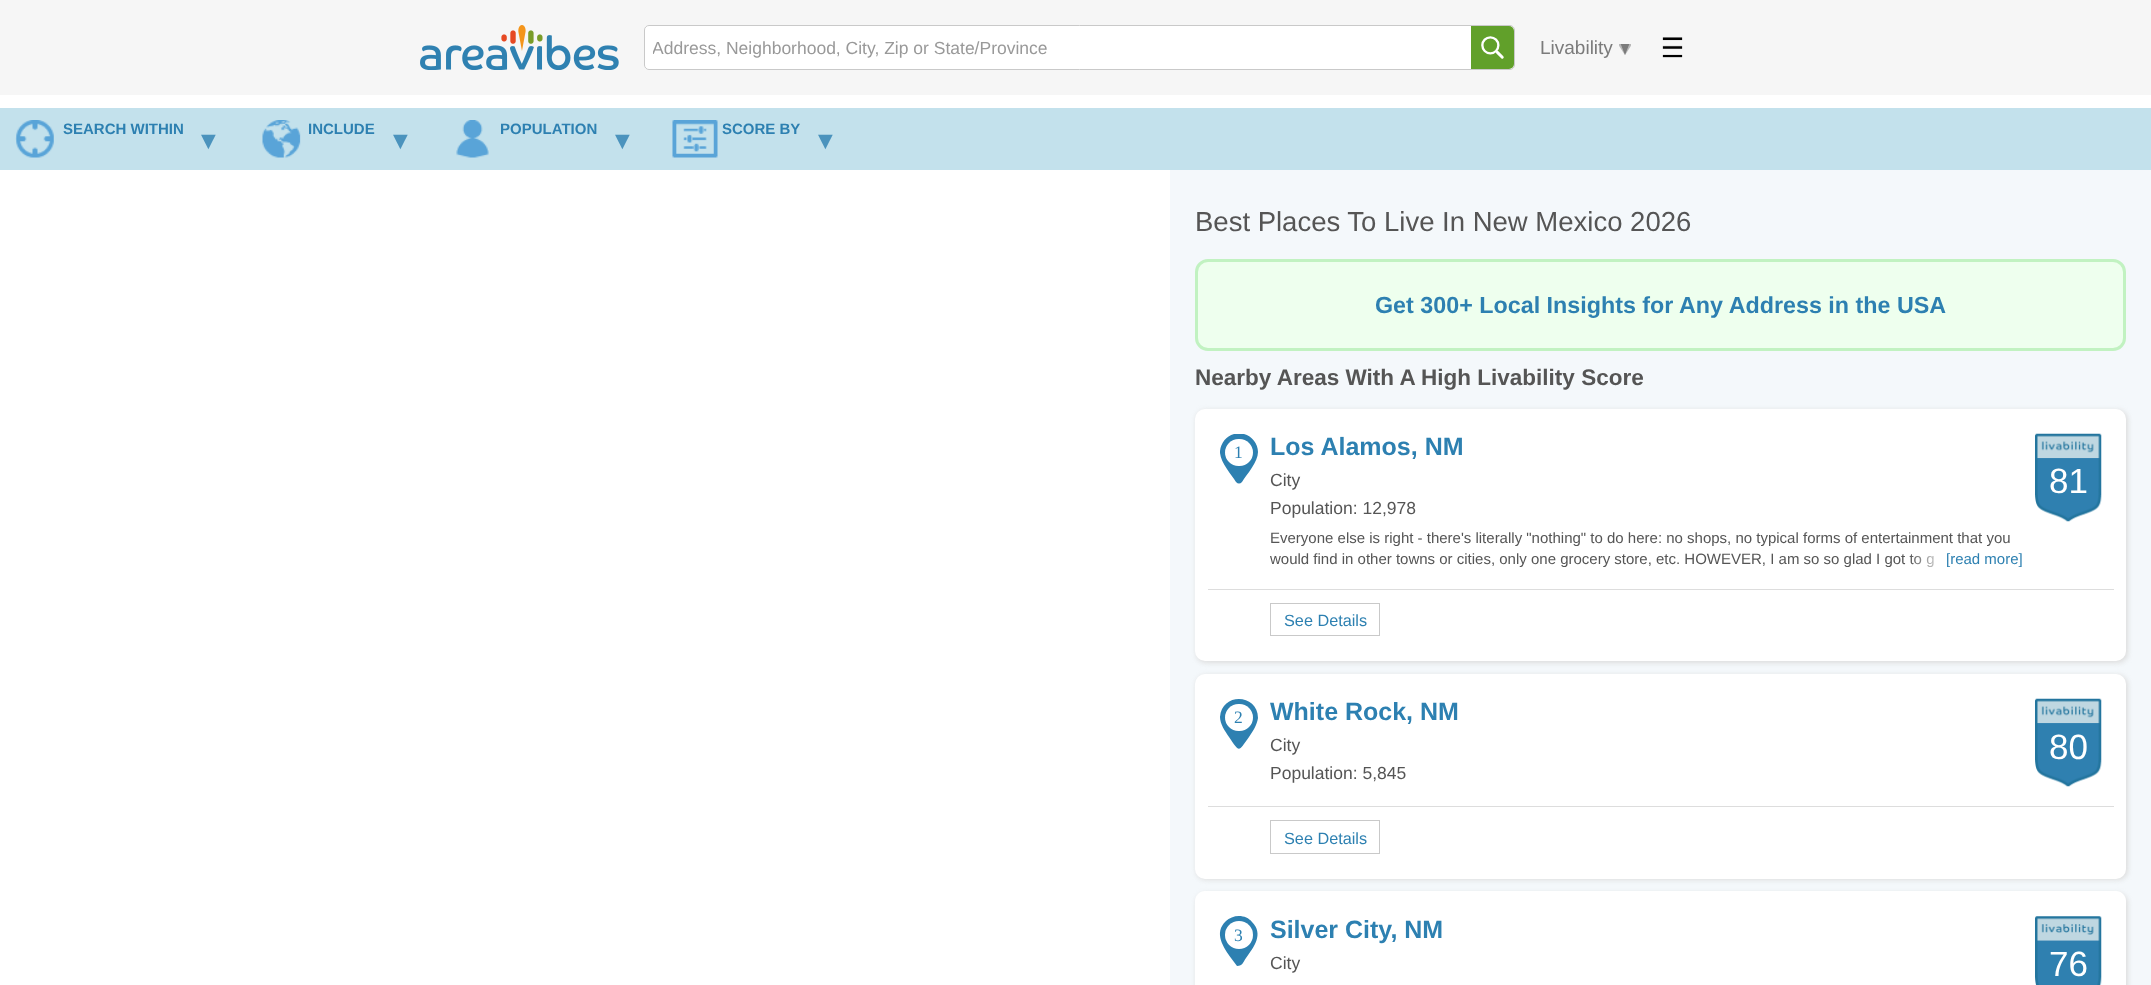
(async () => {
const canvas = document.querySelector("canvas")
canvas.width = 2151
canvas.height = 985
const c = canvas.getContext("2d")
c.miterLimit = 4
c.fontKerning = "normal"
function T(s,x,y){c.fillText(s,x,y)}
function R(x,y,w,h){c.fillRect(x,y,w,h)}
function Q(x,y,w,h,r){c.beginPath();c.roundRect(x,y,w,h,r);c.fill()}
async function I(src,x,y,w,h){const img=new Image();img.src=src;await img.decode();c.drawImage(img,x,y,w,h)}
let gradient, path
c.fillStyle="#fff"
R(0,0,2151,985)
c.fillStyle="#f6f6f6"
R(0,0,2151,95)
await I("1.png",420,25,199,45)
c.fillStyle="#fff"
Q(644,25,871,45,5)
c.beginPath()
c.roundRect(644.5,25.5,870,44,4.5)
c.strokeStyle="#bbbbbbcc"
c.stroke()
c.save()
c.beginPath()
c.rect(653,38,817,20)
c.clip()
c.font="17.5px Liberation Sans"
c.fillStyle="#999"
T("Address, Neighborhood, City, Zip or State/Province",652,54)
c.restore()
c.fillStyle="#61a02a"
c.beginPath()
c.roundRect(1471,26,43,43,[0,5,5,0])
c.fill()
await I("2.png",1481,36,23,23)
await I("3.png",1619,44,12,11)
c.font="19px Liberation Sans"
c.fillStyle="#7b7b7b"
T("Livability",1540,54)
await I("4.png",1662,37,21,21)
c.fillStyle="#c3e1ec"
R(0,108,2151,62)
await I("5.png",15,120,39,38)
c.font="bold 15px Liberation Sans"
c.fillStyle="#2d80b1"
T("SEARCH WITHIN",63,134)
c.font="25px Liberation Sans"
c.fillStyle="#4b93bd"
T("▼",196,149)
await I("6.png",262,120,39,38)
c.font="bold 15px Liberation Sans"
c.fillStyle="#2d80b1"
T("INCLUDE",308,134)
c.font="25px Liberation Sans"
c.fillStyle="#4b93bd"
T("▼",388,149)
await I("7.png",456,120,33,38)
c.font="bold 15px Liberation Sans"
c.fillStyle="#2d80b1"
T("POPULATION",500,134)
c.font="25px Liberation Sans"
c.fillStyle="#4b93bd"
T("▼",610,149)
await I("8.png",672,120,46,38)
c.font="bold 15px Liberation Sans"
c.fillStyle="#2d80b1"
T("SCORE BY",722,134)
c.font="25px Liberation Sans"
c.fillStyle="#4b93bd"
T("▼",813,149)
c.fillStyle="#f4f8fb"
R(1170,170,981,815)
c.font="27.5px Liberation Sans"
c.fillStyle="#555"
T("Best Places To Live In New Mexico 2026",1195,231)
c.fillStyle="#efe"
c.beginPath()
c.roundRect(1196.5,260.5,928,89,11.5)
c.fill()
c.strokeStyle="#c1f2c1"
c.lineWidth=3
c.stroke()
c.font="bold 23.3px Liberation Sans"
c.fillStyle="#2d80b1"
T("Get 300+ Local Insights for Any Address in the USA",1375,313)
c.font="bold 22.5px Liberation Sans"
c.fillStyle="#555"
T("Nearby Areas With A High Livability Score",1195,385)
c.fillStyle="#ddd"
c.filter="blur(2.5px)"
c.beginPath()
c.roundRect(1196,410,932,253,10)
c.fill()
c.filter="none"
c.fillStyle="#fff"
Q(1195,409,931,252,10)
c.fillStyle="#2d80b1"
path = new Path2D("M1220 451c1-8 6-15 14-17h10c8 2 14 10 14 18c0 10-11 22-16 30c-2 2-4 2-6 0c-5-8-15-19-16-29z")
c.fill(path)
c.fillStyle="#fff"
Q(1225,439,28,27,13.5)
c.font="17.5px Liberation Serif"
c.fillStyle="#2d80b1"
T("1",1234,458)
c.font="bold 25px Liberation Sans"
T("Los Alamos, NM",1270,455)
c.font="17.5px Liberation Sans"
c.fillStyle="#555"
T("City",1270,486)
T("Population: 12,978",1270,514)
c.font="15px Liberation Sans"
T("Everyone else is right - there's literally \"nothing\" to do here: no shops, no typical forms of entertainment that you",1270,543)
T("would find in other towns or cities, only one grocery store, etc. HOWEVER, I am so so glad I got to g",1270,564)
gradient = c.createLinearGradient(1909,559,2023,559)
gradient.addColorStop(0,"#ffffff00")
gradient.addColorStop(.31,"#ffffffe6")
gradient.addColorStop(.33,"#fff")
c.fillStyle = gradient
R(1910,554,24,14)
c.fillStyle="#2d80b1"
T("[read more]",1946,564)
await I("9.png",2035,433,67,89)
c.font="35px Liberation Sans"
c.fillStyle="#fff"
T("81",2049,493)
c.fillStyle="#ddd"
R(1208,589,906,1)
c.strokeStyle="#c9c9c9"
c.lineWidth=1
c.strokeRect(1270.5,603.5,109,32)
c.font="16.25px Liberation Sans"
c.fillStyle="#2d80b1"
T("See Details",1284,626)
c.fillStyle="#ddd"
c.filter="blur(2.5px)"
c.beginPath()
c.roundRect(1196,675,932,205,10)
c.fill()
c.filter="none"
c.fillStyle="#fff"
Q(1195,674,931,205,10)
c.fillStyle="#2d80b1"
path = new Path2D("M1220 717c2-25 38-23 38 1c-1 7-5 13-9 19c-11 15-9 16-20 0c-4-6-9-13-9-20z")
c.fill(path)
c.fillStyle="#fff"
Q(1225,704,28,27,13.5)
c.font="17.5px Liberation Serif"
c.fillStyle="#2d80b1"
T("2",1234,723)
c.font="bold 25px Liberation Sans"
T("White Rock, NM",1270,720)
c.font="17.5px Liberation Sans"
c.fillStyle="#555"
T("City",1270,751)
T("Population: 5,845",1270,779)
await I("9.png",2035,698,67,89)
c.font="35px Liberation Sans"
c.fillStyle="#fff"
T("80",2049,759)
c.fillStyle="#ddd"
R(1208,806,906,1)
c.strokeRect(1270.5,820.5,109,33)
c.font="16.25px Liberation Sans"
c.fillStyle="#2d80b1"
T("See Details",1284,844)
c.fillStyle="#ddd"
c.filter="blur(2.5px)"
c.beginPath()
c.roundRect(1196,893,932,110,10)
c.fill()
c.filter="none"
c.fillStyle="#fff"
path = new Path2D("M1205 891h911c5.5 0 10 4.5 10 10v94h-931v-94c0-5.5 4.5-10 10-10z")
c.fill(path)
c.fillStyle="#2d80b1"
path = new Path2D("M1239 916c5 0 10 2 13 6c12 12 2 25-6 36c-3 4-3 8-9 8l-6-8c-7-10-18-25-5-37c3-3 8-5 13-5z")
c.fill(path)
c.fillStyle="#fff"
c.beginPath()
c.arc(1239,935,14,0,7)
c.fill()
c.font="17.5px Liberation Serif"
c.fillStyle="#2d80b1"
T("3",1234,941)
c.font="bold 25px Liberation Sans"
T("Silver City, NM",1270,938)
c.font="17.5px Liberation Sans"
c.fillStyle="#555"
T("City",1270,969)
await I("10.png",2035,916,67,69)
c.font="35px Liberation Sans"
c.fillStyle="#fff"
T("76",2049,976)
})()
